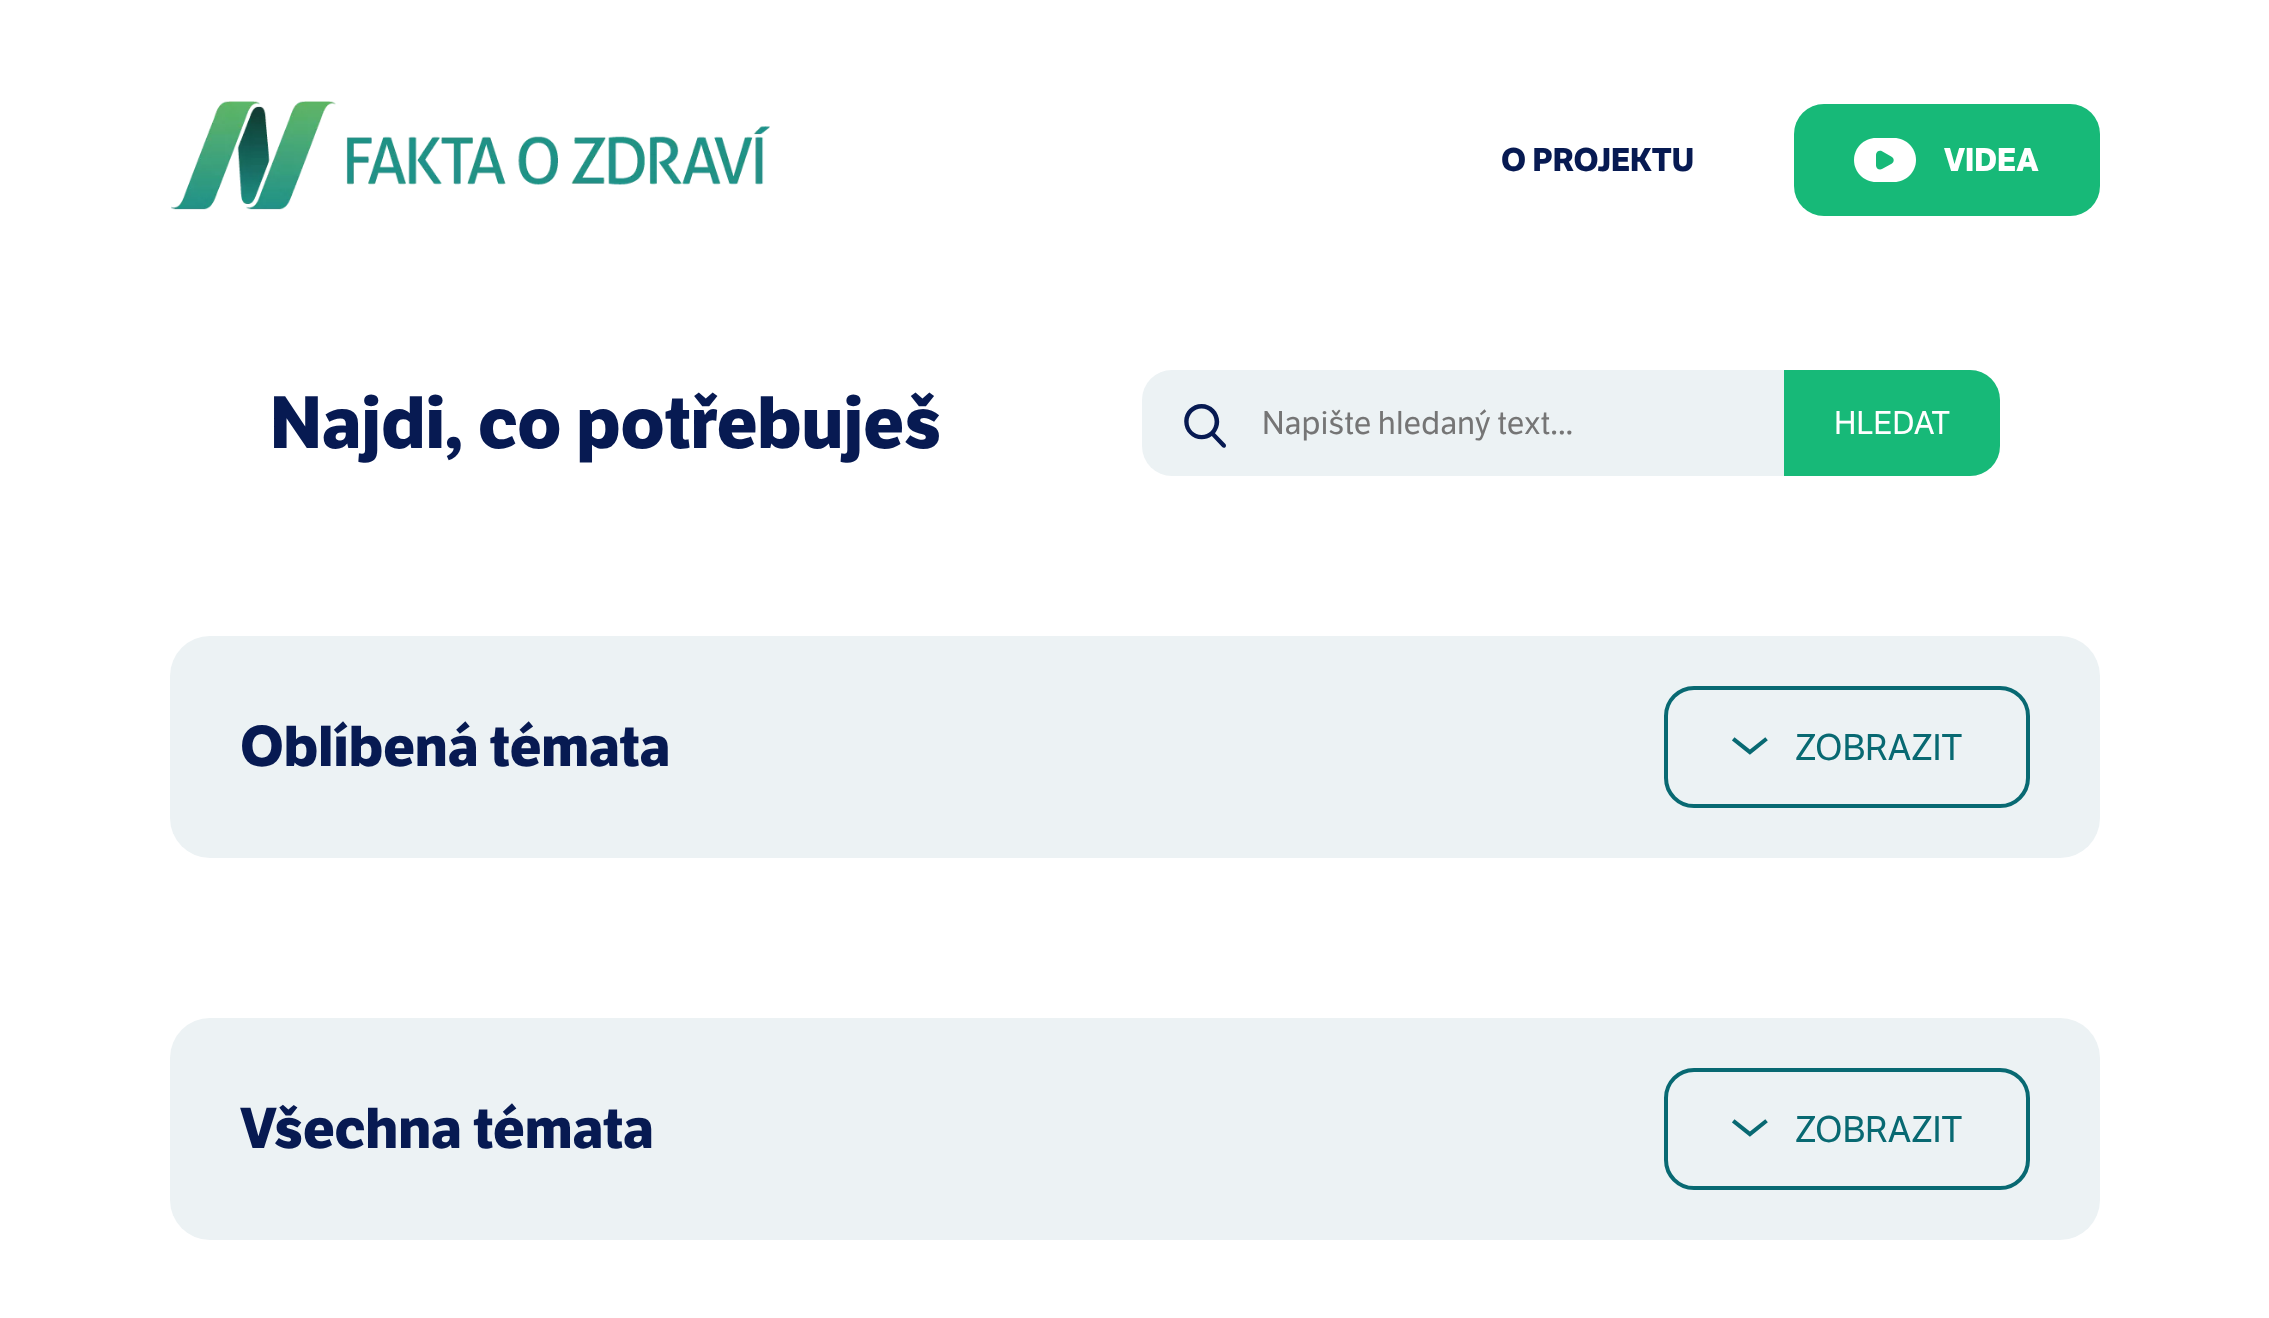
(async () => {
const canvas = document.querySelector("canvas")
canvas.width = 2269
canvas.height = 1318
const c = canvas.getContext("2d")
c.miterLimit = 4
c.fontKerning = "normal"
function T(s,x,y){c.fillText(s,x,y)}
function R(x,y,w,h){c.fillRect(x,y,w,h)}
function Q(x,y,w,h,r){c.beginPath();c.roundRect(x,y,w,h,r);c.fill()}
async function I(src,x,y,w,h){const img=new Image();img.src=src;await img.decode();c.drawImage(img,x,y,w,h)}
c.fillStyle="#fff"
R(0,0,2269,1318)
await I("1.png",171,101,599,109)
c.font="bold 32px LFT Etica"
c.fillStyle="#071a52"
T("O PROJEKTU",1501,171)
c.fillStyle="#17b978"
Q(1794,104,306,112,30)
await I("2.png",1854,138,62,44)
c.fillStyle="#fff"
T("VIDEA",1944,171)
c.font="bold 72px LFT Etica"
c.fillStyle="#071a52"
T("Najdi, co potřebuješ",270,448)
c.fillStyle="#ecf2f4"
Q(1142,370,858,106,30)
await I("3.png",1184,404,42,44)
c.font="32px LFT Etica"
c.fillStyle="#757575"
T("Napište hledaný text...",1262,434)
c.fillStyle="#17b978"
c.beginPath()
c.roundRect(1784,370,216,106,[0,30,30,0])
c.fill()
c.fillStyle="#fff"
T("HLEDAT",1834,434)
c.fillStyle="#ecf2f4"
Q(170,636,1930,222,40)
c.font="bold 56px LFT Etica"
c.fillStyle="#071a52"
T("Oblíbená témata",240,766)
c.beginPath()
c.roundRect(1666,688,362,118,28)
c.strokeStyle="#086972"
c.lineWidth=4
c.stroke()
await I("4.png",1732,737,36,18)
c.font="36px LFT Etica"
c.fillStyle="#086972"
T("ZOBRAZIT",1795,760)
c.fillStyle="#ecf2f4"
Q(170,1018,1930,222,40)
c.font="bold 56px LFT Etica"
c.fillStyle="#071a52"
T("Všechna témata",240,1148)
c.beginPath()
c.roundRect(1666,1070,362,118,28)
c.stroke()
await I("4.png",1732,1119,36,18)
c.font="36px LFT Etica"
c.fillStyle="#086972"
T("ZOBRAZIT",1795,1142)
})()
